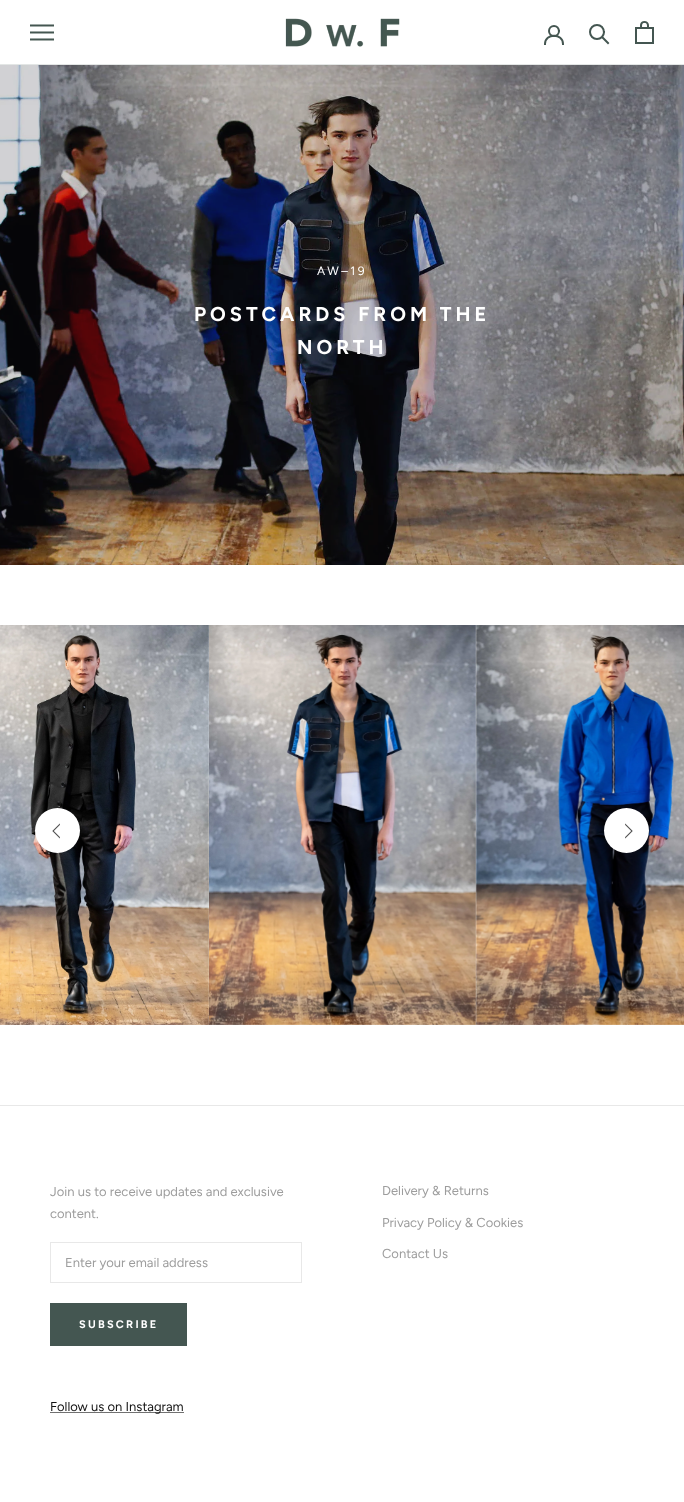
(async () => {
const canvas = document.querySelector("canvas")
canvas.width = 684
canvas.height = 1502
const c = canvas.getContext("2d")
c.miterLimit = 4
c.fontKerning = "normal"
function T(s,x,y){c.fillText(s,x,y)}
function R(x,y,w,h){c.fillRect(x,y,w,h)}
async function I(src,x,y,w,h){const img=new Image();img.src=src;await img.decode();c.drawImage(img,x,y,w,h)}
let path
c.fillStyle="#fff"
R(0,0,684,1502)
c.fillStyle="#e3e6e5"
R(0,64,684,1)
await I("1.png",30,24,24,17)
await I("2.png",285,18,115,29)
path = new Path2D("M545 44c0-11 18-11 18 0")
c.strokeStyle="#445651"
c.lineWidth=2
c.lineCap="square"
c.stroke(path)
c.beginPath()
c.arc(554,31,5,0,7)
c.stroke()
path = new Path2D("M608 43l-5.5-5.5")
c.stroke(path)
c.beginPath()
c.arc(597,32,7,0,7)
c.stroke()
await I("3.png",635,21,19,23)
await I("4.png",0,65,684,500)
c.letterSpacing="2.5px"
c.font="12px Figtree"
c.fillStyle="#fff"
T("AW–19",317,275)
c.letterSpacing="4px"
c.font="bold 20px Figtree"
T("POSTCARDS FROM THE",194,321)
T("NORTH",297,354)
await I("5.png",0,625,210,400)
await I("6.png",209,625,267,400)
await I("7.png",475,625,209,400)
c.fillStyle="#36363626"
c.filter="blur(5px)"
c.beginPath()
c.roundRect(35,810,45,45,22.5)
c.fill()
c.filter="none"
c.fillStyle="#fff"
c.beginPath()
c.arc(57.5,830.5,22.5,0,7)
c.fill()
await I("8.png",52,823,8,16)
c.beginPath()
c.arc(626.5,830.5,22.5,0,7)
c.fill()
await I("9.png",625,823,8,16)
c.fillStyle="#e8e8e8"
R(0,1105,684,1)
c.letterSpacing="0px"
c.font="13px Figtree"
c.fillStyle="#9d9d9d"
T("Join us to receive updates and exclusive",50,1196)
T("content.",50,1218)
c.strokeStyle="#e8e8e8"
c.lineWidth=1
c.strokeRect(50.5,1242.5,251,40)
T("Enter your email address",65,1267)
c.strokeStyle="#445651"
c.strokeRect(50.5,1303.5,136,42)
c.fillStyle="#445651"
R(51,1304,135,41)
c.letterSpacing="2.25px"
c.font="bold 11px Figtree"
c.fillStyle="#fff"
T("SUBSCRIBE",79,1328)
c.letterSpacing="0px"
c.font="13px Figtree"
c.fillStyle="#9d9d9d"
T("Delivery & Returns",382,1195)
T("Privacy Policy & Cookies",382,1227)
T("Contact Us",382,1258)
c.fillStyle="#717171"
R(50,1412,134,1)
c.fillStyle="#131313"
T("Follow us on Instagram",50,1411)
})()
